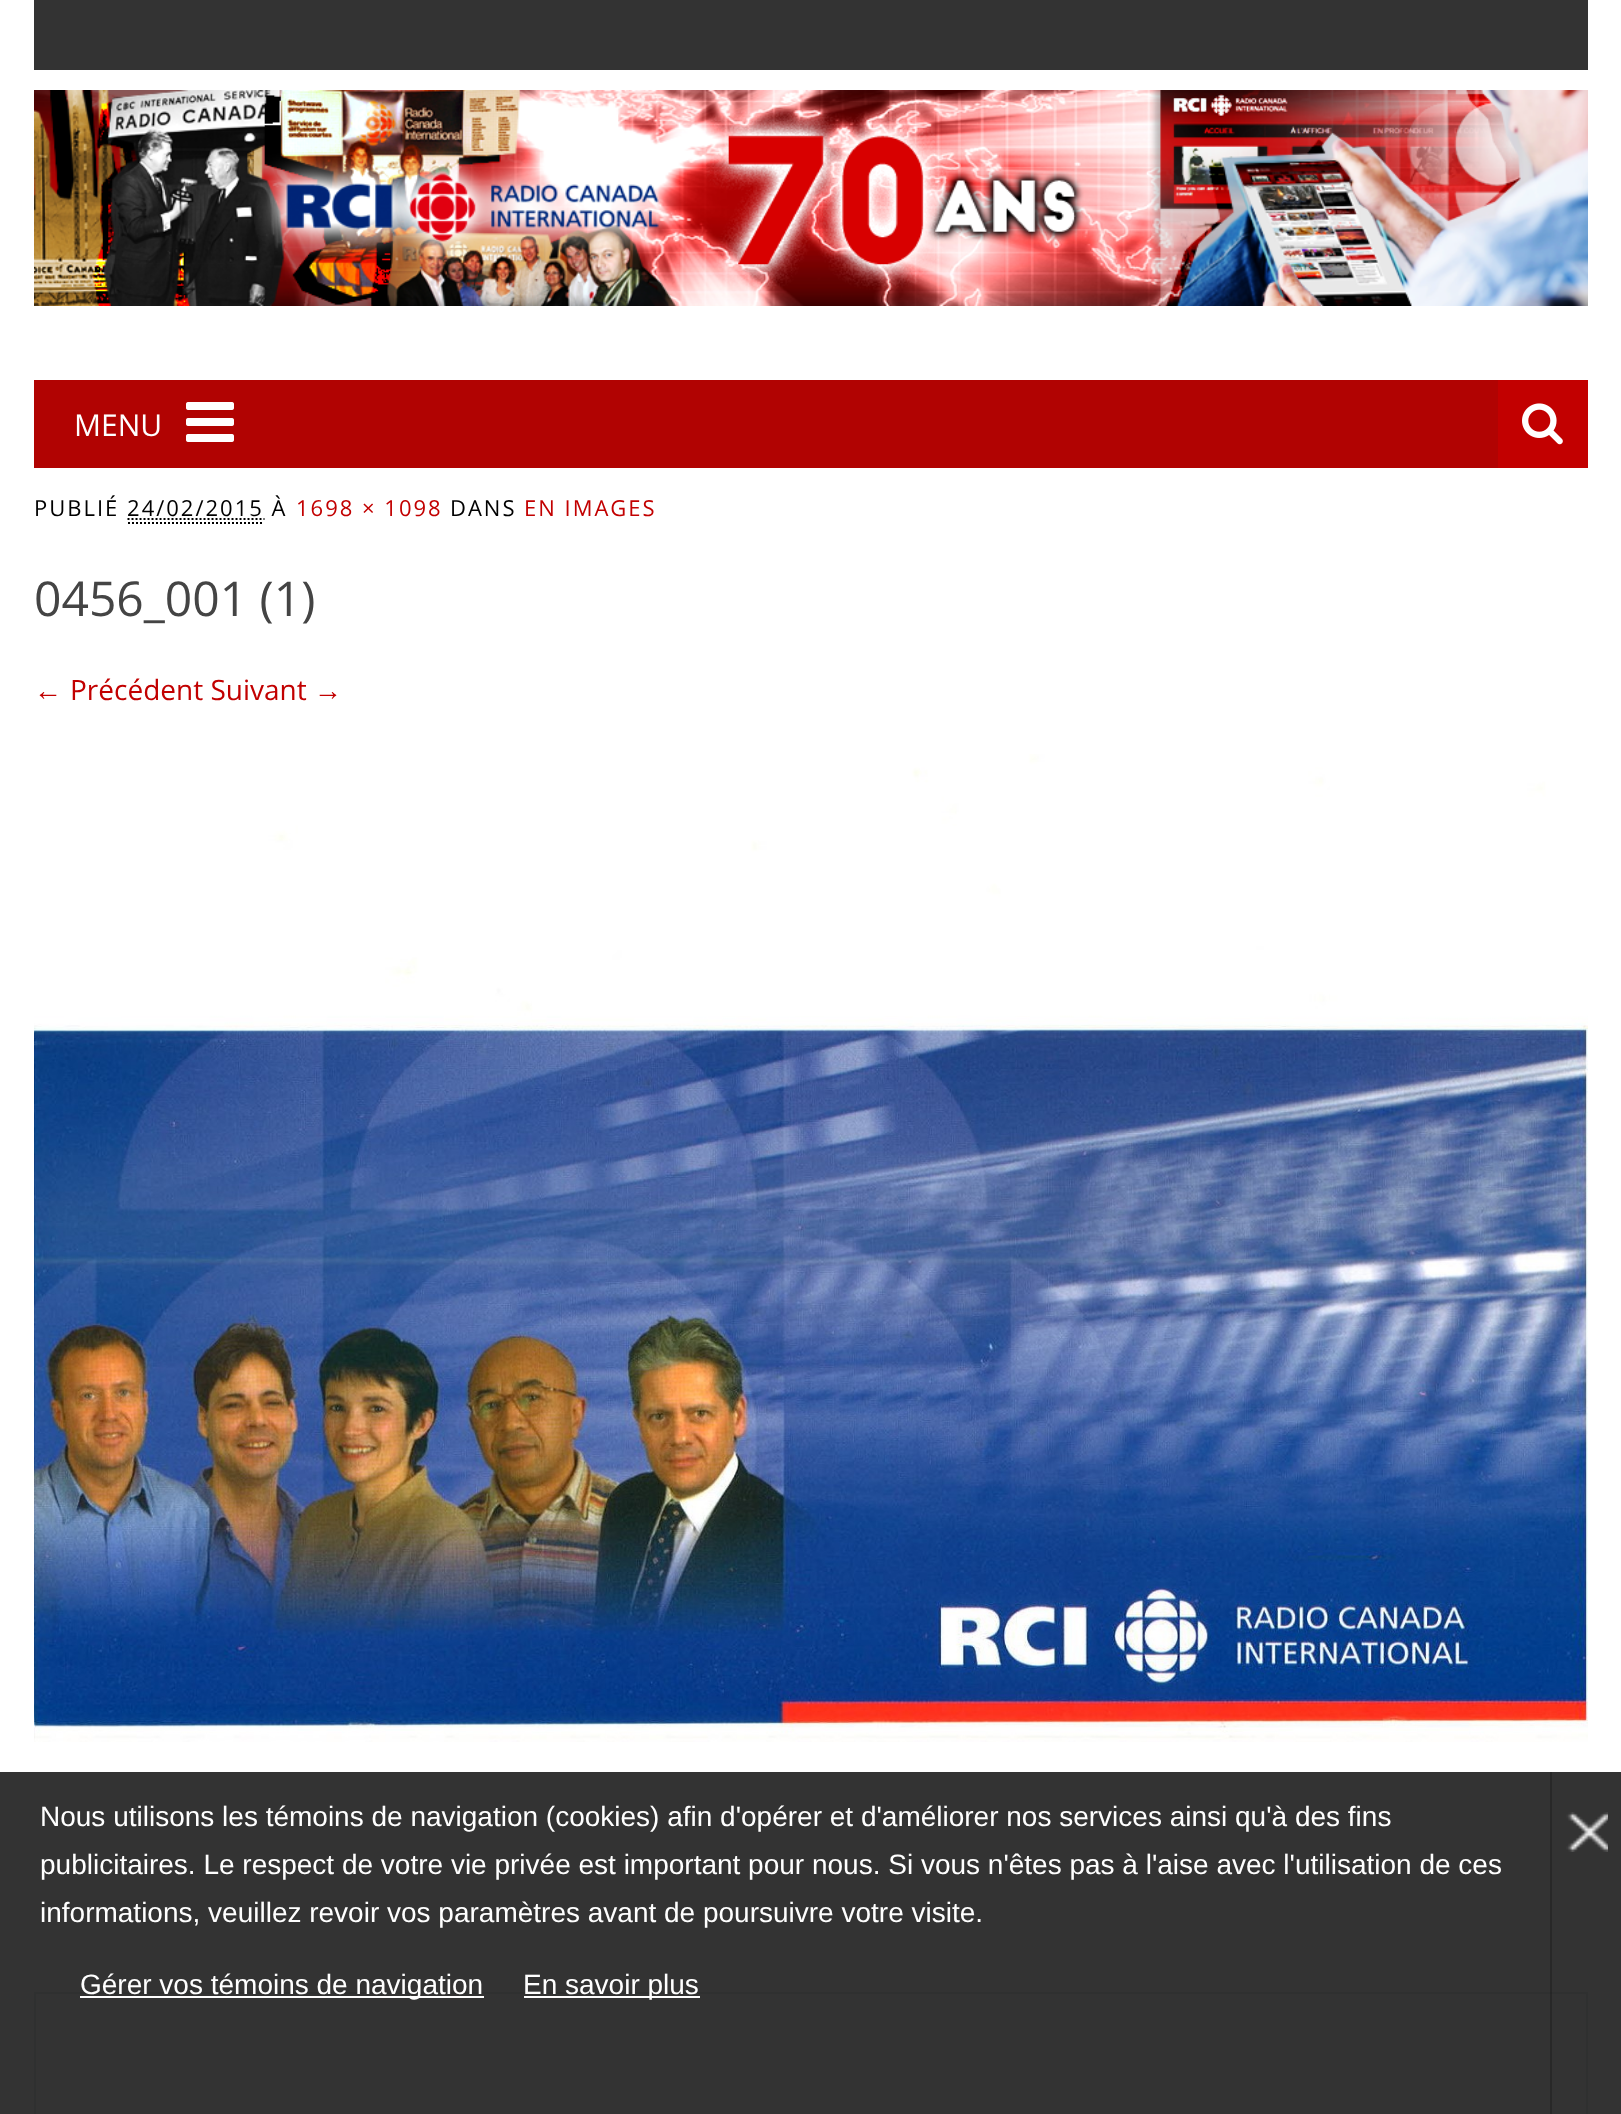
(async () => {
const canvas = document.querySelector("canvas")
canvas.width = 1621
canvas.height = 2114
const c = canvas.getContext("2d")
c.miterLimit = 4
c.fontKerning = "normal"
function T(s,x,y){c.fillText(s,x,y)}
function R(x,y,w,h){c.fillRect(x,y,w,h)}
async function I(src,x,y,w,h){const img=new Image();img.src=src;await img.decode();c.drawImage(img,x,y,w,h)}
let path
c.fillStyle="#fff"
R(0,0,1621,2114)
c.fillStyle="#333"
R(34,0,1554,70)
await I("1.png",34,90,1554,216)
c.fillStyle="#b10302"
R(34,380,1464,88)
c.font="30px Open Sans"
c.fillStyle="#fff"
T("MENU",74,436)
await I("2.png",186,402,48,40)
c.fillStyle="#c20000"
R(1498,380,90,88)
await I("3.png",1522,403,41,42)
c.letterSpacing="2px"
c.font="22px Open Sans"
c.fillStyle="#000"
T("PUBLIÉ 24/02/2015 À",34,516)
c.fillStyle="#c20000"
T("1698 × 1098",296,516)
c.fillStyle="#000"
T("DANS",450,516)
c.fillStyle="#c20000"
T("EN IMAGES",524,516)
path = new Path2D("M127.5 519h137")
c.strokeStyle="#000"
c.lineWidth=2
c.setLineDash([2,2])
c.stroke(path)
path = new Path2D("M128 523h136")
c.stroke(path)
c.letterSpacing="0px"
c.font="48px Open Sans"
c.fillStyle="#444"
T("0456_001 (1)",34,616)
c.font="28px Liberation Serif"
c.fillStyle="#c20000"
T("←",34,700)
c.font="28px Open Sans"
T("Précédent Suivant",70,700)
c.font="28px Liberation Serif"
T("→",314,700)
await I("4.png",34,754,1554,988)
c.fillStyle="#fcfcfc"
c.beginPath()
c.rect(35,1993,1552,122)
c.fill()
c.strokeStyle="#ecf0f1"
c.setLineDash([])
c.stroke()
c.fillStyle="#000000cc"
R(0,1772,1621,342)
c.font="28px Liberation Sans"
c.fillStyle="#fff"
T("Nous utilisons les témoins de navigation (cookies) afin d'opérer et d'améliorer nos services ainsi qu'à des fins",40,1826)
T("publicitaires. Le respect de votre vie privée est important pour nous. Si vous n'êtes pas à l'aise avec l'utilisation de ces",40,1874)
T("informations, veuillez revoir vos paramètres avant de poursuivre votre visite.",40,1922)
R(80,1996,404,2)
T("Gérer vos témoins de navigation",80,1994)
R(524,1996,176,2)
T("En savoir plus",523,1994)
c.fillStyle="#00000033"
R(1550,1772,2,342)
await I("5.png",1566,1812,42,40)
})()
